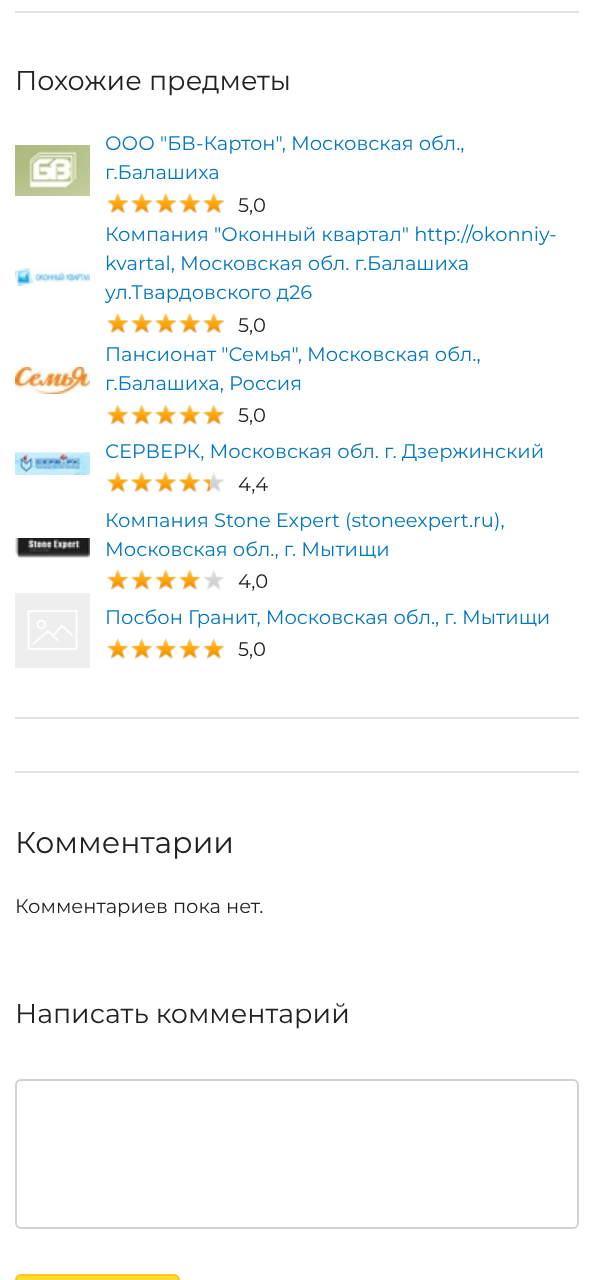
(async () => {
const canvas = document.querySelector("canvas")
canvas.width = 593
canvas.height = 1280
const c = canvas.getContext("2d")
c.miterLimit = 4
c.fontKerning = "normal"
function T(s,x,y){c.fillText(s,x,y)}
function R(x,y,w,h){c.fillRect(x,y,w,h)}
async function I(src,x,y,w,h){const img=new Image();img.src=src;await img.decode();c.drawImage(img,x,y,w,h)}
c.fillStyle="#fff"
R(0,0,593,1280)
c.fillStyle="#e1e1e1"
R(15,11,564,2)
c.font="27px Montserrat"
c.fillStyle="#222"
T("Похожие предметы",15,90)
await I("1.png",15,145,75,51)
c.font="19.5px Montserrat"
c.fillStyle="#0277bd"
T("ООО \"БВ-Картон\", Московская обл.,",105,150)
T("г.Балашиха",105,179)
await I("2.png",107,193,118,20)
await I("3.png",106,192,119,21)
c.fillStyle="#222"
T("5,0",238,212)
await I("4.png",15,268,75,18)
c.fillStyle="#0277bd"
T("Компания \"Оконный квартал\" http://okonniy-",105,241)
T("kvartal, Московская обл. г.Балашиха",105,270)
T("ул.Твардовского д26",105,299)
await I("2.png",107,313,118,20)
await I("3.png",106,312,119,21)
c.fillStyle="#222"
T("5,0",238,332)
await I("5.png",15,367,75,27)
c.fillStyle="#0277bd"
T("Пансионат \"Семья\", Московская обл.,",105,361)
T("г.Балашиха, Россия",105,390)
await I("6.png",107,404,117,21)
await I("7.png",106,404,119,21)
c.fillStyle="#222"
T("5,0",238,422)
await I("8.png",15,452,75,23)
c.fillStyle="#0277bd"
T("СЕРВЕРК, Московская обл. г. Дзержинский",105,458)
await I("2.png",107,472,118,20)
await I("9.png",106,471,104,21)
c.fillStyle="#222"
T("4,4",238,491)
await I("10.png",15,538,75,20)
c.fillStyle="#0277bd"
T("Компания Stone Expert (stoneexpert.ru),",105,527)
T("Московская обл., г. Мытищи",105,556)
await I("6.png",107,569,117,21)
await I("11.png",106,569,95,21)
c.fillStyle="#222"
T("4,0",238,588)
await I("12.png",15,593,75,75)
c.fillStyle="#0277bd"
T("Посбон Гранит, Московская обл., г. Мытищи",105,624)
await I("6.png",107,638,117,21)
await I("7.png",106,638,119,21)
c.fillStyle="#222"
T("5,0",238,656)
c.fillStyle="#e1e1e1"
R(15,717,564,2)
R(15,771,564,2)
c.font="30px Montserrat"
c.fillStyle="#222"
T("Комментарии",15,853)
c.font="19.5px Montserrat"
T("Комментариев пока нет.",15,913)
c.font="27px Montserrat"
T("Написать комментарий",15,1023)
c.beginPath()
c.roundRect(16,1080,562,148,5)
c.strokeStyle="#d1d1d1"
c.lineWidth=2
c.stroke()
c.fillStyle="#ffdd2d"
c.beginPath()
c.roundRect(16,1275,163,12,5)
c.fill()
c.strokeStyle="#fcc521"
c.stroke()
})()
